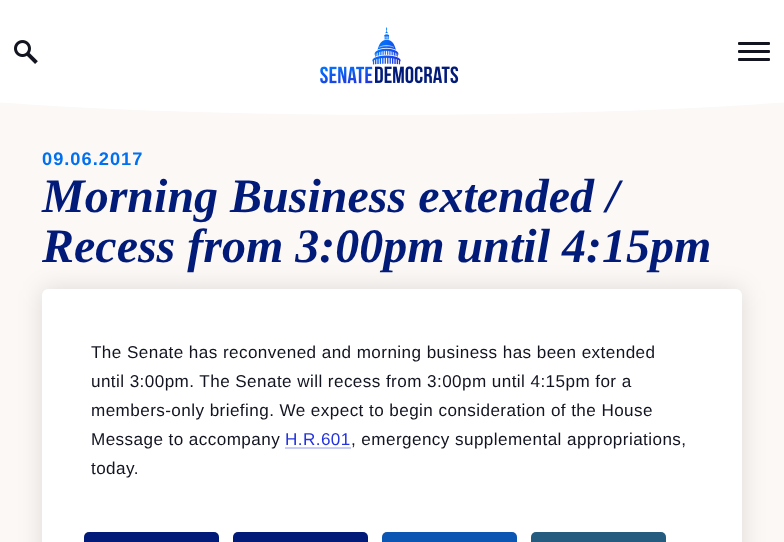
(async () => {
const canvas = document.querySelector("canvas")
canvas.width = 784
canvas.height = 542
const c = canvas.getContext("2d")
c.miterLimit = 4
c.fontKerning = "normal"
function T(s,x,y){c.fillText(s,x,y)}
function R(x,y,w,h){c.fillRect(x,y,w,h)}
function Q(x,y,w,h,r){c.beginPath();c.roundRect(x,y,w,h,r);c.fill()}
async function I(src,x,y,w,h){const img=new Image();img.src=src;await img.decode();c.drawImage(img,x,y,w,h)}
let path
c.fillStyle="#fbf8f6"
R(0,0,784,542)
c.fillStyle="#fff"
R(0,0,784,99)
await I("1.png",14,40,24,24)
await I("2.png",320,27,139,57)
c.fillStyle="#121420"
Q(738,42,32,3,1)
Q(738,50,32,3,1)
Q(738,58,32,3,1)
c.fillStyle="#fff"
path = new Path2D("M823 99c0 0-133 15-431 16c-298-1-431-16-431-16")
c.fill(path)
c.letterSpacing="1px"
c.font="bold 18.25px Arimo"
c.fillStyle="#0070f0"
T("09.06.2017",42,165)
c.letterSpacing="0px"
c.font="italic bold 48px Tinos"
c.fillStyle="#021b79"
T("Morning Business extended /",42,212)
c.fillStyle="#0000001f"
c.filter="blur(12.5px)"
c.beginPath()
c.roundRect(42,289,700,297,6)
c.fill()
c.filter="none"
c.fillStyle="#021b79"
T("Recess from 3:00pm until 4:15pm",42,262)
c.fillStyle="#fff"
Q(42,289,700,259,6)
c.letterSpacing="0.43px"
c.font="17.1px Arimo"
c.fillStyle="#121420"
T("The Senate has reconvened and morning business has been extended",91,358)
T("until 3:00pm. The Senate will recess from 3:00pm until 4:15pm for a",91,387)
T("members-only briefing. We expect to begin consideration of the House",91,416)
T("Message to accompany",91,445)
c.fillStyle="#2433db"
T("H.R.601",285,445)
c.fillStyle="#c8ccf6"
R(285,447,66,2)
c.fillStyle="#121420"
T(", emergency supplemental appropriations,",351,445)
T("today.",91,474)
c.fillStyle="#021b79"
Q(84,532,135,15,5)
Q(233,532,135,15,5)
c.fillStyle="#0a56b2"
Q(382,532,135,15,5)
c.fillStyle="#245b7f"
Q(531,532,135,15,5)
})()
